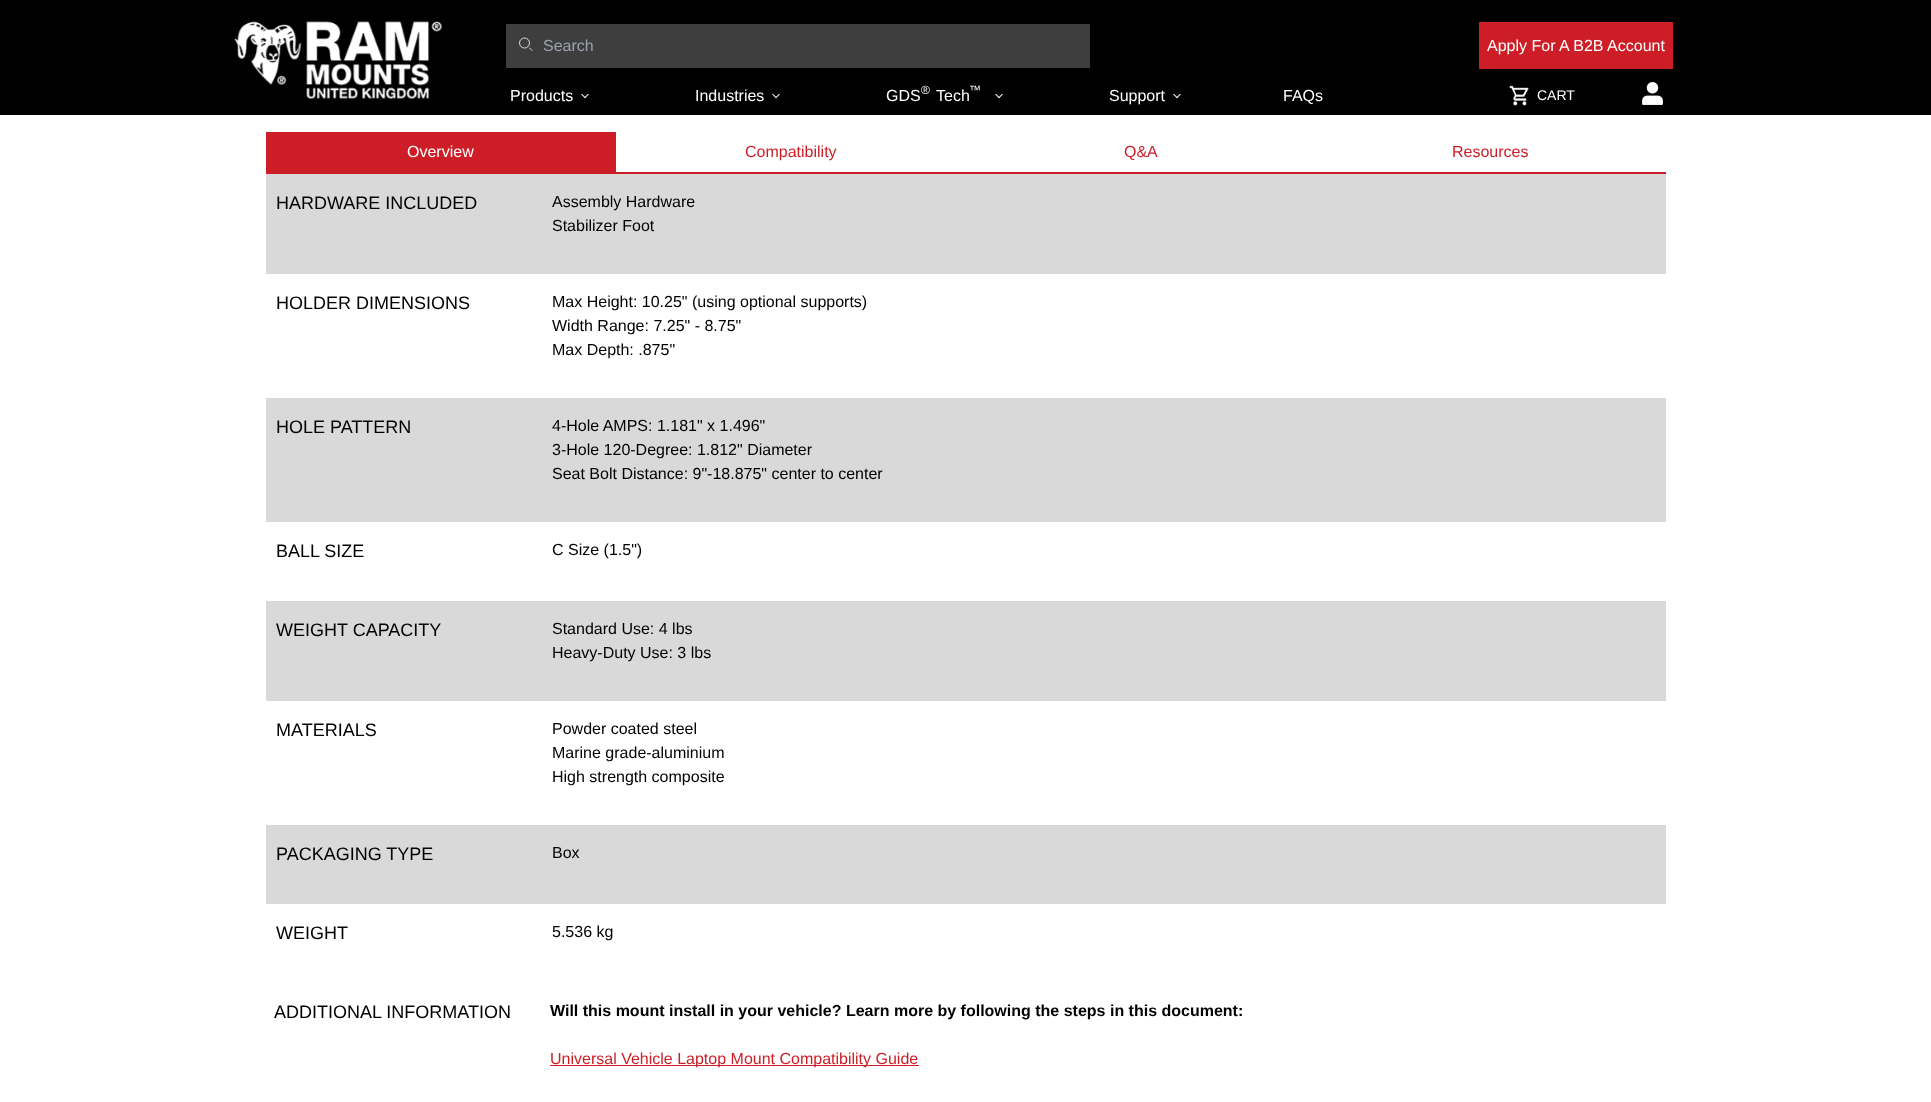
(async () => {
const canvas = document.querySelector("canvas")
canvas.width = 1931
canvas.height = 1102
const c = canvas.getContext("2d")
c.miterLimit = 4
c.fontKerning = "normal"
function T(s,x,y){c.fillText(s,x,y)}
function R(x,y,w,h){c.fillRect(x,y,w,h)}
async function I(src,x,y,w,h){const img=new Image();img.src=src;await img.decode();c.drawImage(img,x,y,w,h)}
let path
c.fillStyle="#fff"
R(0,0,1931,1102)
c.fillStyle="#000"
R(0,0,1931,115)
await I("1.png",234,21,209,78)
c.fillStyle="#3e3e3e"
R(506,24,584,44)
c.beginPath()
c.arc(524.5,43,5,0,7)
c.strokeStyle="#fff"
c.lineWidth=0.8
c.stroke()
path = new Path2D("M532 50.5l-2.5-2.5")
c.lineCap="round"
c.stroke(path)
c.font="16px Liberation Sans"
c.fillStyle="#9ca3af"
T("Search",543,51)
c.fillStyle="#cd1e27"
R(1479,22,194,47)
c.fillStyle="#fff"
T("Apply For A B2B Account",1487,51)
T("Products",510,101)
await I("2.png",581,93,8,6)
T("Industries",695,101)
await I("2.png",772,93,8,6)
c.font="12px Liberation Sans"
T("®",921,94)
T("™",969,94)
c.font="16px Liberation Sans"
T("GDS",886,101)
T("Tech",936,101)
await I("2.png",995,93,8,6)
T("Support",1109,101)
await I("2.png",1173,93,8,6)
T("FAQs",1283,101)
await I("3.png",1509,85,20,21)
c.font="14px Liberation Sans"
T("CART",1537,100)
await I("4.png",1642,82,21,23)
c.fillStyle="#cd1e27"
R(266,172,1400,2)
R(266,132,350,40)
c.font="16px Liberation Sans"
c.fillStyle="#fff"
T("Overview",407,157)
c.fillStyle="#cd1e27"
T("Compatibility",745,157)
T("Q&A",1124,157)
T("Resources",1452,157)
c.fillStyle="#d9d9d9"
R(266,174,1400,100)
c.font="18px Liberation Sans"
c.fillStyle="#000"
T("HARDWARE INCLUDED",276,209)
c.font="16px Liberation Sans"
T("Assembly Hardware",552,207)
T("Stabilizer Foot",552,231)
c.font="18px Liberation Sans"
T("HOLDER DIMENSIONS",276,309)
c.font="16px Liberation Sans"
T("Max Height: 10.25\" (using optional supports)",552,307)
T("Width Range: 7.25\" - 8.75\"",552,331)
T("Max Depth: .875\"",552,355)
c.fillStyle="#d9d9d9"
R(266,398,1400,124)
c.font="18px Liberation Sans"
c.fillStyle="#000"
T("HOLE PATTERN",276,433)
c.font="16px Liberation Sans"
T("4-Hole AMPS: 1.181\" x 1.496\"",552,431)
T("3-Hole 120-Degree: 1.812\" Diameter",552,455)
T("Seat Bolt Distance: 9\"-18.875\" center to center",552,479)
c.font="18px Liberation Sans"
T("BALL SIZE",276,557)
c.font="16px Liberation Sans"
T("C Size (1.5\")",552,555)
c.fillStyle="#d9d9d9"
R(266,601,1400,100)
c.font="18px Liberation Sans"
c.fillStyle="#000"
T("WEIGHT CAPACITY",276,636)
c.font="16px Liberation Sans"
T("Standard Use: 4 lbs",552,634)
T("Heavy-Duty Use: 3 lbs",552,658)
c.font="18px Liberation Sans"
T("MATERIALS",276,736)
c.font="16px Liberation Sans"
T("Powder coated steel",552,734)
T("Marine grade-aluminium",552,758)
T("High strength composite",552,782)
c.fillStyle="#d9d9d9"
R(266,825,1400,79)
c.font="18px Liberation Sans"
c.fillStyle="#000"
T("PACKAGING TYPE",276,860)
c.font="16px Liberation Sans"
T("Box",552,858)
c.font="18px Liberation Sans"
T("WEIGHT",276,939)
c.font="16px Liberation Sans"
T("5.536 kg",552,937)
c.font="18px Liberation Sans"
T("ADDITIONAL INFORMATION",274,1018)
c.font="bold 16px Liberation Sans"
T("Will this mount install in your vehicle? Learn more by following the steps in this document:",550,1016)
c.fillStyle="#cd1e27"
R(550,1065,369,1)
c.font="16px Liberation Sans"
T("Universal Vehicle Laptop Mount Compatibility Guide",550,1064)
})()
